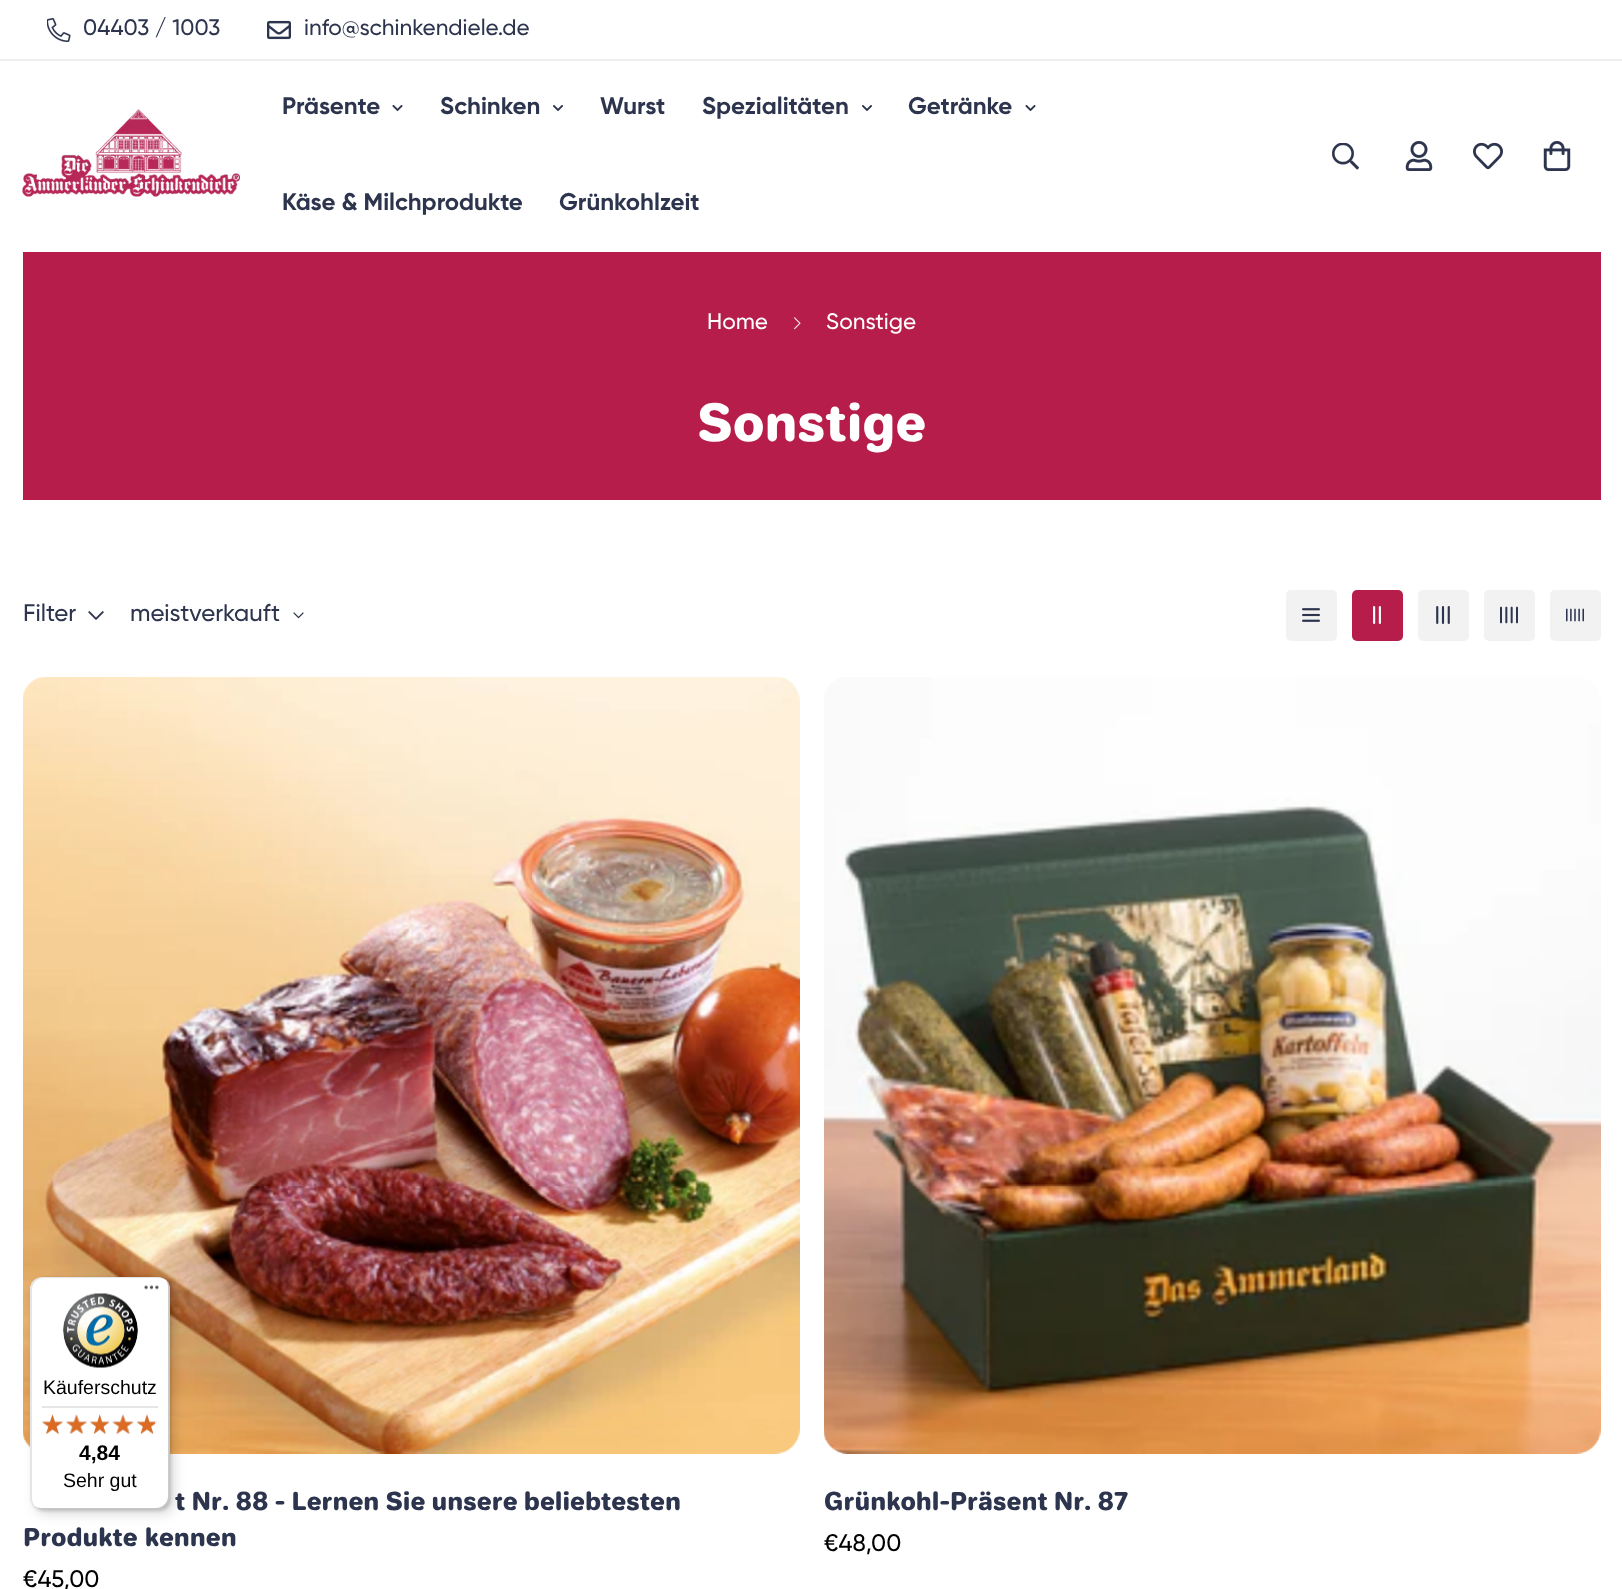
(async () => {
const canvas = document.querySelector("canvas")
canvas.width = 1622
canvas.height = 1589
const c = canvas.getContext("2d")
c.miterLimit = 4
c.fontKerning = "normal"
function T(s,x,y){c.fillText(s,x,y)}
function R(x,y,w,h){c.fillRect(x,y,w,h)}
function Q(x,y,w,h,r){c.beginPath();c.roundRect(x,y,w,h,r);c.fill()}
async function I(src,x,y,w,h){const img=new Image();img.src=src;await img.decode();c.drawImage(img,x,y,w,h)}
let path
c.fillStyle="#fff"
R(0,0,1622,1589)
c.fillStyle="#eee"
R(0,59,1622,2)
await I("1.png",47,18,24,24)
c.font="500 22.5px Gilroy"
c.fillStyle="#2d344d"
T("04403 / 1003",83,35)
await I("2.png",267,20,24,20)
T("info@schinkendiele.de",304,35)
await I("3.png",22,109,218,88)
c.font="bold 24px Gilroy"
T("Präsente",282,114)
await I("4.png",392,104,11,8)
T("Schinken",440,114)
await I("5.png",553,105,10,6)
T("Wurst",600,114)
T("Spezialitäten",702,114)
await I("5.png",862,105,10,6)
T("Getränke",908,114)
await I("4.png",1025,104,11,8)
T("Käse & Milchprodukte",282,210)
T("Grünkohlzeit",559,210)
await I("6.png",1332,143,27,27)
await I("7.png",1405,141,28,30)
await I("8.png",1473,142,30,28)
await I("9.png",1543,141,28,30)
c.fillStyle="#b61d4a"
R(23,252,1578,248)
c.font="500 22.5px Gilroy"
c.fillStyle="#fff"
T("Home",707,329)
await I("10.png",794,317,7,13)
T("Sonstige",826,329)
c.font="49.5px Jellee"
T("Sonstige",697,441)
c.font="500 24px Gilroy"
c.fillStyle="#2d344d"
T("Filter",23,621)
await I("11.png",88,611,16,9)
T("meistverkauft",130,621)
await I("12.png",293,612,11,7)
c.fillStyle="#f2f2f2"
Q(1286,590,51,51,5)
await I("13.png",1302,608,18,14)
c.fillStyle="#b61d4a"
Q(1352,590,51,51,5)
await I("14.png",1373,606,8,18)
c.fillStyle="#f2f2f2"
Q(1418,590,51,51,5)
await I("15.png",1436,606,14,18)
Q(1484,590,51,51,5)
await I("16.png",1500,606,18,18)
Q(1550,590,51,51,5)
await I("17.png",1566,608,18,14)
await I("18.png",23,677,777,777)
c.wordSpacing="0.25px"
c.font="24px Jellee"
c.fillStyle="#2d344d"
T("t Nr. 88 - Lernen Sie unsere beliebtesten",175,1510)
c.wordSpacing="1px"
T("Produkte kennen",23,1546)
c.wordSpacing="0px"
c.font="500 24px Gilroy"
c.fillStyle="#000"
T("€45,00",23,1587)
await I("19.png",824,677,777,777)
c.font="24px Jellee"
c.fillStyle="#2d344d"
T("Grünkohl-Präsent Nr. 87",824,1510)
c.font="500 24px Gilroy"
c.fillStyle="#000"
T("€48,00",824,1551)
c.fillStyle="#00000026"
c.filter="blur(6px)"
c.beginPath()
c.roundRect(35,1281,139,233,12)
c.fill()
c.filter="none"
c.filter="blur(1.5px)"
c.beginPath()
c.roundRect(32,1278,139,233,12)
c.fill()
c.filter="none"
c.fillStyle="#fff"
Q(30,1277,140,232,12)
c.fillStyle="#0000001a"
path = new Path2D("M44 1278h115c3 0 5 1 7 2c-2-2-5-3-8-3h-116c-7 0-12 5-12 12v208c0 5 3 9 7 11c-3-2-5-6-5-10v-208c0-7 5-12 12-12z")
c.fill(path)
c.fillStyle="#00000033"
path = new Path2D("M35 1506c2 2 4 3 7 3h116c7 0 12-5 12-12v-208c0-4-2-7-4-9c1 2 2 4 2 7v209c0 6-5 12-12 12h-116c-2 0-4-1-5-2z")
c.fill(path)
c.fillStyle="#32323233"
path = new Path2D("M34 1506c2 2 5 3 8 3h116c7 0 12-5 12-12v-208c0-4-2-7-4-9c2 2 3 5 3 8v208c0 7-6 12-12 12h-116c-3 0-5-1-7-2z")
c.fill(path)
c.fillStyle="#ffffff4d"
path = new Path2D("M33 1505c2 2 5 4 9 4h116c7 0 12-5 12-12v-208c0-4-2-7-4-9c2 2 3 5 3 8v208c0 7-6 12-12 12h-116c-3 0-6-1-8-3z")
c.fill(path)
await I("20.png",144,1285,15,5)
await I("21.png",63,1293,75,75)
c.font="19.5px Liberation Sans"
c.fillStyle="#000"
T("Käuferschutz",43,1394)
c.fillStyle="#e5e5e5"
R(42,1406,116,2)
await I("22.png",42,1414,21,20)
await I("23.png",66,1415,21,19)
await I("24.png",90,1414,19,20)
await I("25.png",113,1415,20,19)
await I("26.png",137,1414,20,20)
await I("27.png",42,1414,21,20)
await I("28.png",66,1414,21,20)
await I("29.png",90,1414,19,20)
await I("30.png",112,1414,22,20)
await I("31.png",137,1414,18,20)
c.font="bold 21px Liberation Sans"
c.fillStyle="#000"
T("4,84",79,1460)
c.font="19.5px Liberation Sans"
T("Sehr gut",63,1487)
})()
